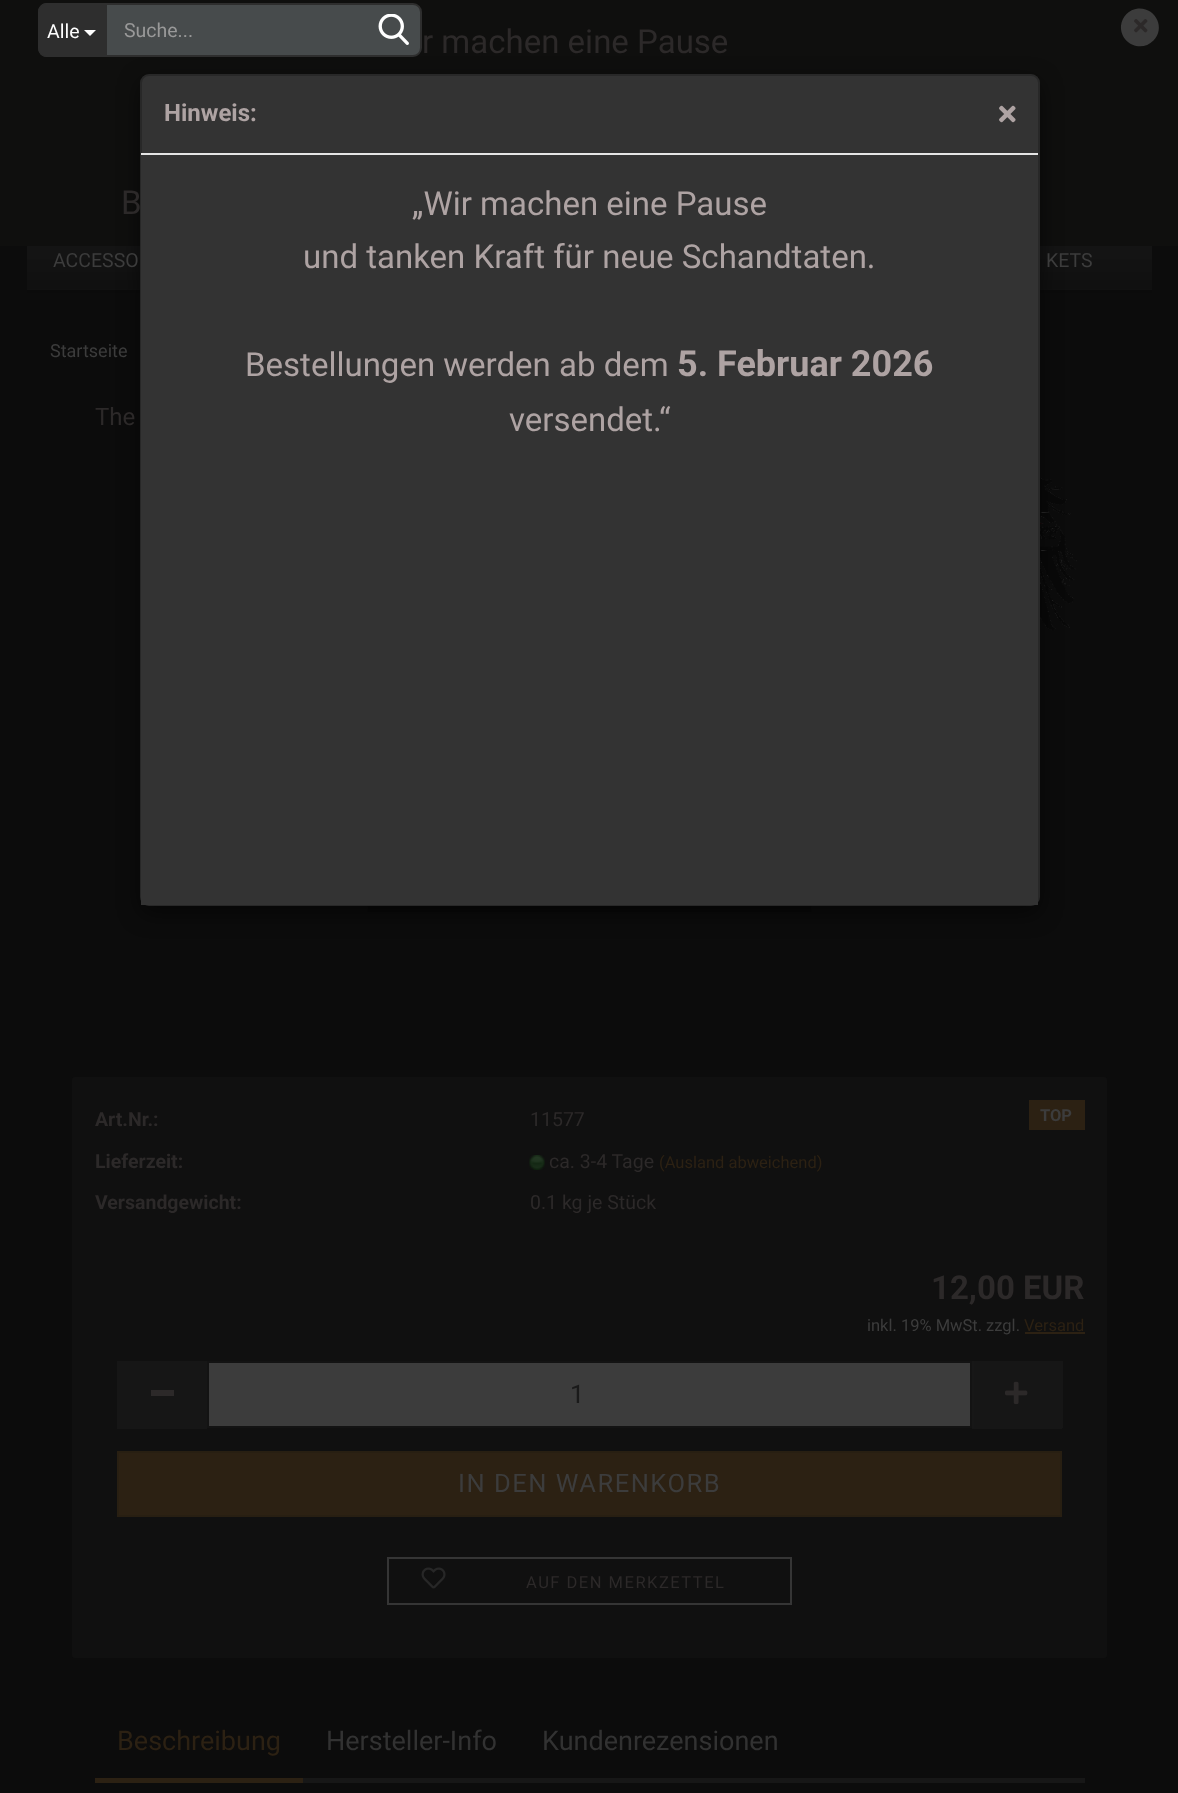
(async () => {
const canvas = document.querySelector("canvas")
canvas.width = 1178
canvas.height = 1793
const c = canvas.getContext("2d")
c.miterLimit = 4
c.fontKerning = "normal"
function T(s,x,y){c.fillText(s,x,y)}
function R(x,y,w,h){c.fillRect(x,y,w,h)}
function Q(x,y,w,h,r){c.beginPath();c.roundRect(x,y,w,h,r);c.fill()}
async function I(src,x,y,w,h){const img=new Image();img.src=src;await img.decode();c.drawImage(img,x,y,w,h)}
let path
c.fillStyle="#0c0c0c"
R(0,0,1178,1793)
c.fillStyle="#0f0f0e"
R(0,0,1178,246)
c.fillStyle="#2e2e2e"
c.beginPath()
c.roundRect(38,3,67,54,[9,0,0,9])
c.fill()
path = new Path2D("M46 3h59v54h-59c-4 0-8-4-8-9v-36c0-5 4-9 8-9zm0 1h59v52h-59c-4 0-7-4-7-8v-36c0-4 3-8 7-8z")
c.fill(path,"evenodd")
c.font="19.5px Roboto"
c.fillStyle="#fff"
T("Alle",47,38)
path = new Path2D("M84 30h12l-6 6z")
c.fill(path)
c.fillStyle="#141414"
R(27,246,1125,44)
await I("3.png",27,259,1125,31)
await I("4.png",27,290,1125,3)
await I("5.png",1040,477,37,154)
await I("6.png",367,906,445,6)
c.fillStyle="#00000080"
c.filter="blur(11px)"
c.beginPath()
c.roundRect(140,81,900,833,9)
c.fill()
c.filter="none"
c.fillStyle="#474b4c"
c.beginPath()
c.roundRect(106,4,315,52,[0,8,8,0])
c.fill()
c.strokeStyle="#2e2e2e"
c.lineWidth=2
c.stroke()
c.fillStyle="#999"
T("Suche...",124,37)
await I("1.png",378,14,31,31)
c.font="33px Roboto"
c.fillStyle="#2c2929"
T("r machen eine Pause",422,53)
T("B",121,214)
c.fillStyle="#3c3c3c"
path = new Path2D("M1126.5 14c3-3 7-5 11.5-5.5c17.5-1.5 28 19.5 15.5 32c-12.5 13-34 2.5-32.5-15c.5-4.5 2.5-8.5 5.5-11.5z")
c.fill(path)
await I("2.png",1134,19,14,14)
c.font="19.5px Roboto"
T("ACCESSO",53,267)
T("KETS",1046,267)
c.font="18px Roboto"
T("Startseite",50,357)
c.font="24px Roboto"
c.fillStyle="#2c2929"
T("The",95,425)
c.fillStyle="#101010"
Q(72,1077,1035,581,3)
c.fillStyle="#2c2113"
R(1029,1100,56,30)
c.font="bold 16.5px Roboto"
c.fillStyle="#3c3c3c"
T("TOP",1040,1121)
c.font="bold 19.5px Roboto"
c.fillStyle="#2c2929"
T("Art.Nr.:",95,1126)
c.font="19.5px Roboto"
T("11577",530,1126)
c.font="bold 19.5px Roboto"
T("Lieferzeit:",95,1168)
await I("7.png",529,1155,16,15)
c.font="19.5px Roboto"
T("ca. 3-4 Tage",549,1168)
c.font="16.5px Roboto"
c.fillStyle="#2c2113"
T("(Ausland abweichend)",659,1168)
c.font="bold 19.5px Roboto"
c.fillStyle="#2c2929"
T("Versandgewicht:",95,1209)
c.font="19.5px Roboto"
T("0.1 kg je Stück",530,1209)
c.font="bold 33px Roboto"
T("12,00 EUR",931,1299)
c.font="16.5px Roboto"
c.fillStyle="#3c3c3c"
T("inkl. 19% MwSt. zzgl.",867,1331)
c.fillStyle="#2c2113"
T("Versand",1024,1331)
R(1025,1332,60,2)
c.fillStyle="#161616"
R(117,1361,90,68)
c.fillStyle="#2c2929"
R(151,1390,23,6)
c.fillStyle="#3c3c3c"
c.beginPath()
c.rect(208,1362,763,65)
c.fill()
c.strokeStyle="#131313"
c.stroke()
c.font="25.5px Roboto"
c.fillStyle="#1a1a1a"
T("1",570,1403)
c.fillStyle="#161616"
R(974,1361,87,66)
R(1061,1361,2,67)
R(972,1427,90,2)
c.fillStyle="#171717"
R(972,1361,2,67)
await I("8.png",1005,1381,23,24)
c.fillStyle="#2c2113"
c.beginPath()
c.rect(118,1452,943,64)
c.fill()
c.strokeStyle="#281f12"
c.stroke()
c.letterSpacing="1.5px"
c.fillStyle="#3c3c3c"
T("IN DEN WARENKORB",458,1492)
c.strokeStyle="#353535"
c.strokeRect(388,1558,403,46)
await I("9.png",421,1567,25,22)
c.font="16.5px Roboto"
c.fillStyle="#2c2929"
T("AUF DEN MERKZETTEL",526,1588)
c.fillStyle="#171717"
R(303,1778,782,5)
c.fillStyle="#2c2113"
R(95,1778,208,5)
c.letterSpacing="0px"
c.font="27px Roboto"
T("Beschreibung",117,1750)
c.fillStyle="#323232"
T("Hersteller-Info",326,1750)
T("Kundenrezensionen",542,1750)
c.fillStyle="#333"
Q(140,74,900,832,9)
c.beginPath()
c.roundRect(141,75,898,830,8)
c.strokeStyle="#00000033"
c.stroke()
c.fillStyle="#e5e5e5"
R(141,153,897,2)
c.font="bold 24px Roboto"
c.fillStyle="#aea3a3"
T("Hinweis:",164,121)
await I("10.png",999,105,17,18)
c.fillStyle="#333"
R(141,155,897,750)
c.font="33px Roboto"
c.fillStyle="#aea3a3"
T("„Wir machen eine Pause",412,215)
T("und tanken Kraft für neue Schandtaten.",303,268)
T("Bestellungen werden ab dem",245,376)
c.font="bold 36px Roboto"
T("5. Februar 2026",677,376)
c.font="33px Roboto"
T("versendet.“",509,431)
})()
